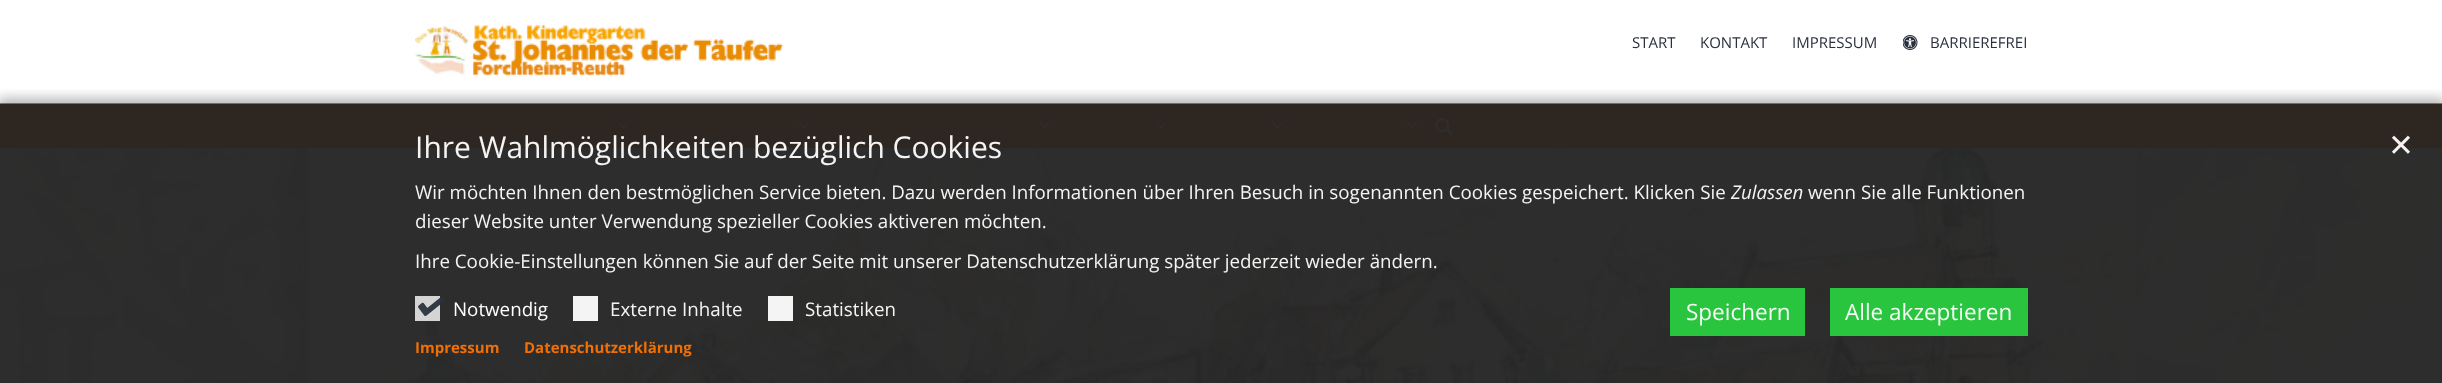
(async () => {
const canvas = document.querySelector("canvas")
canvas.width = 2442
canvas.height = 383
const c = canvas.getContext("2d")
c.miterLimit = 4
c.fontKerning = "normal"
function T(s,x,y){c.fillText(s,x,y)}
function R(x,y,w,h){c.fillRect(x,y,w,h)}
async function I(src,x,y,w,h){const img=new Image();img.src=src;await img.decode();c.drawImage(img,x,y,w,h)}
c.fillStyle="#fff"
R(0,0,2442,383)
await I("1.png",415,25,369,52)
c.font="15px Open Sans"
c.fillStyle="#2a313e"
T("START",1632,48)
T("KONTAKT",1700,48)
T("IMPRESSUM",1792,48)
await I("2.png",1903,35,15,15)
T("BARRIEREFREI",1930,48)
c.fillStyle="#fb7404"
R(0,103,2442,1)
c.fillStyle="#2d2621"
R(0,104,2442,44)
await I("3.png",618,122,11,7)
await I("3.png",798,122,11,7)
await I("4.png",1039,122,11,7)
await I("5.png",1155,122,12,6)
await I("6.png",1272,122,11,7)
await I("6.png",1407,122,11,7)
await I("7.png",1435,117,18,19)
await I("8.png",0,147,2442,236)
c.save()
c.beginPath()
c.rect(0,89,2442,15)
c.clip()
c.fillStyle="#00000047"
c.filter="blur(6px)"
c.beginPath()
c.rect(-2,98,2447,285)
c.fill()
c.filter="none"
c.restore()
c.font="30px Open Sans"
c.fillStyle="#f4f4f4"
T("Ihre Wahlmöglichkeiten bezüglich Cookies",415,158)
c.font="31px DejaVu Sans"
T("✕",2388,156)
c.font="18.75px Open Sans"
T("Wir möchten Ihnen den bestmöglichen Service bieten. Dazu werden Informationen über Ihren Besuch in sogenannten Cookies gespeichert. Klicken Sie",415,199)
c.font="italic 18.75px Open Sans"
T("Zulassen",1731,199)
c.font="18.75px Open Sans"
T("wenn Sie alle Funktionen",1808,199)
T("dieser Website unter Verwendung spezieller Cookies aktiveren möchten.",415,228)
T("Ihre Cookie-Einstellungen können Sie auf der Seite mit unserer Datenschutzerklärung später jederzeit wieder ändern.",415,268)
c.fillStyle="#ddddddf2"
R(415,296,25,25)
await I("9.png",418,297,27,19)
c.fillStyle="#fff"
T("Notwendig",453,316)
c.fillStyle="#f4f4f4"
R(573,296,25,25)
T("Externe Inhalte",610,316)
c.fillStyle="#fffffff2"
R(768,296,25,25)
c.fillStyle="#f4f4f4"
T("Statistiken",805,316)
c.fillStyle="#29ce3ff2"
R(1670,288,135,48)
c.font="22.5px Open Sans"
c.fillStyle="#f4fcf5"
T("Speichern",1686,320)
c.fillStyle="#29ce3ff2"
R(1830,288,198,48)
c.fillStyle="#f4fcf5"
T("Alle akzeptieren",1845,320)
c.font="bold 15px Open Sans"
c.fillStyle="#f17006"
T("Impressum",415,353)
T("Datenschutzerklärung",524,353)
})()
